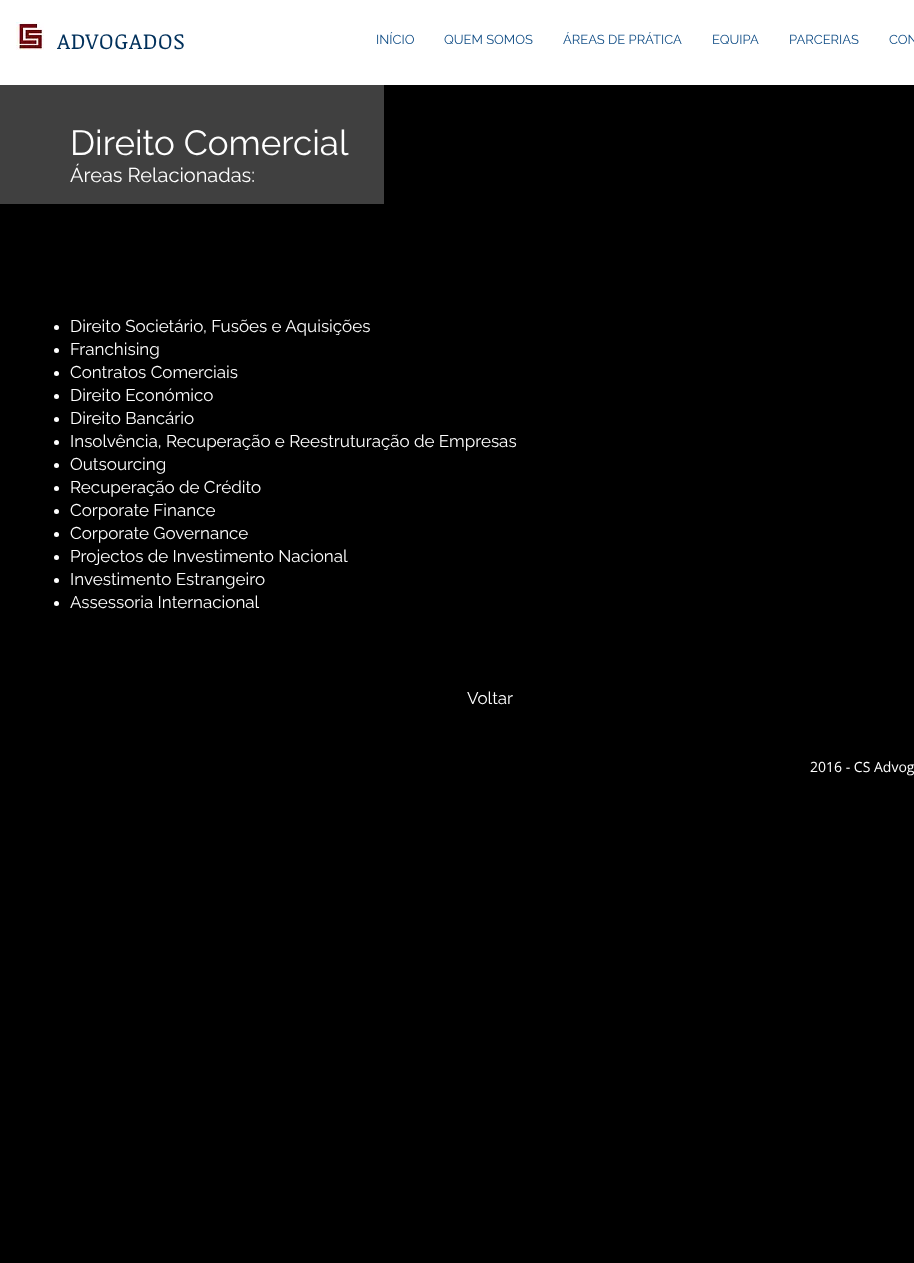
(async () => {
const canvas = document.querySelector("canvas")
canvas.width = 914
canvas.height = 1263
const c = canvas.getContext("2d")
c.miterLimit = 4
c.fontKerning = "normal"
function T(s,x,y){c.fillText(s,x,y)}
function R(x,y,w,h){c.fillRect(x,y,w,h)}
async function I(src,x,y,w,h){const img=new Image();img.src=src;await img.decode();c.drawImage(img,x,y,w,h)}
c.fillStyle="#000"
R(0,0,914,1263)
c.fillStyle="#fff"
R(0,0,914,85)
await I("1.png",16,22,28,28)
c.letterSpacing="0.75px"
c.font="22px Noticia Text"
c.fillStyle="#00305b"
T("ADVOGADOS",57,49)
c.letterSpacing="0px"
c.font="13px Raleway"
c.fillStyle="#0f4c85"
T("INÍCIO",376,44)
T("QUEM SOMOS",444,44)
T("ÁREAS DE PRÁTICA",563,44)
T("EQUIPA",712,44)
T("PARCERIAS",789,44)
T("CON",889,44)
c.fillStyle="#404040"
R(0,85,384,119)
c.font="35px Raleway"
c.fillStyle="#fff"
T("Direito Comercial",70,155)
c.font="20px Raleway"
T("Áreas Relacionadas:",70,182)
c.beginPath()
c.arc(56.5,327.5,2.5,0,7)
c.fill()
c.font="17px Raleway"
T("Direito Societário, Fusões e Aquisições",70,332)
c.beginPath()
c.arc(56.5,350.5,2.5,0,7)
c.fill()
T("Franchising",70,355)
c.beginPath()
c.arc(56.5,373.5,2.5,0,7)
c.fill()
T("Contratos Comerciais",70,378)
c.beginPath()
c.arc(56.5,396.5,2.5,0,7)
c.fill()
T("Direito Económico",70,401)
c.beginPath()
c.arc(56.5,419.5,2.5,0,7)
c.fill()
T("Direito Bancário",70,424)
c.beginPath()
c.arc(56.5,442.5,2.5,0,7)
c.fill()
T("Insolvência, Recuperação e Reestruturação de Empresas",70,447)
c.beginPath()
c.arc(56.5,465.5,2.5,0,7)
c.fill()
T("Outsourcing",70,470)
c.beginPath()
c.arc(56.5,488.5,2.5,0,7)
c.fill()
T("Recuperação de Crédito",70,493)
c.beginPath()
c.arc(56.5,511.5,2.5,0,7)
c.fill()
T("Corporate Finance",70,516)
c.beginPath()
c.arc(56.5,534.5,2.5,0,7)
c.fill()
T("Corporate Governance",70,539)
c.beginPath()
c.arc(56.5,557.5,2.5,0,7)
c.fill()
T("Projectos de Investimento Nacional",70,562)
c.beginPath()
c.arc(56.5,580.5,2.5,0,7)
c.fill()
T("Investimento Estrangeiro",70,585)
c.beginPath()
c.arc(56.5,603.5,2.5,0,7)
c.fill()
T("Assessoria Internacional",70,608)
T("Voltar",467,704)
c.font="14px Open Sans"
T("2016 - CS Advog",810,772)
})()
